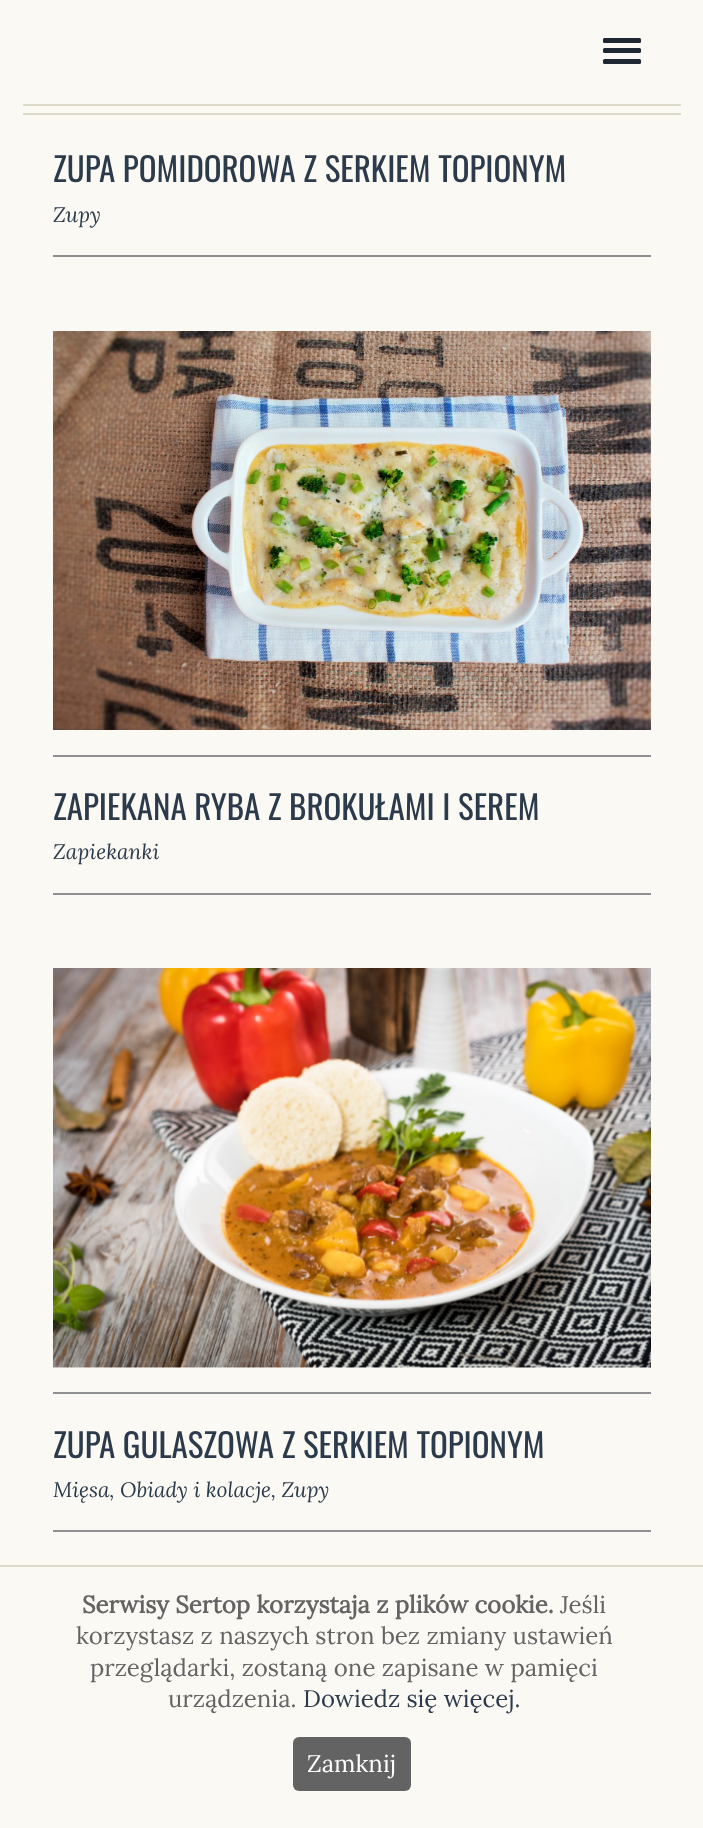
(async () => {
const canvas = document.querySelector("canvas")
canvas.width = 703
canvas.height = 1828
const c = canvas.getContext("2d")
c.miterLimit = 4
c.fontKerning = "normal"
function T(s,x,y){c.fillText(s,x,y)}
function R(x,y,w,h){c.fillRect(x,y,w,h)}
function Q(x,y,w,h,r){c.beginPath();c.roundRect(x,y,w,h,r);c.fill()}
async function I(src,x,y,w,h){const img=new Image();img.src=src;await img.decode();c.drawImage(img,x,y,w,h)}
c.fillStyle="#fbf9f4"
R(0,0,703,1828)
c.fillStyle="#dcd9c9"
R(23,113,658,2)
c.fillStyle="#1e2732"
Q(603,48,38,5,1.5)
Q(603,38,38,5,1.5)
Q(603,59,38,5,1.5)
c.fillStyle="#dcd9c9"
R(23,104,658,2)
c.fillStyle="#8e9092"
R(53,255,598,2)
c.font="33px Oswald"
c.fillStyle="#2c3b4b"
T("ZUPA POMIDOROWA Z SERKIEM TOPIONYM",53,182)
c.font="italic 21px Lora"
T("Zupy",53,222)
await I("1.png",53,331,598,399)
c.fillStyle="#8e9092"
R(53,755,598,2)
R(53,893,598,2)
c.font="33px Oswald"
c.fillStyle="#2c3b4b"
T("ZAPIEKANA RYBA Z BROKUŁAMI I SEREM",53,820)
c.font="italic 21px Lora"
T("Zapiekanki",53,859)
await I("2.png",53,968,598,400)
c.fillStyle="#8e9092"
R(53,1392,598,2)
R(53,1530,598,2)
c.font="33px Oswald"
c.fillStyle="#2c3b4b"
T("ZUPA GULASZOWA Z SERKIEM TOPIONYM",53,1458)
c.font="italic 21px Lora"
T("Mięsa, Obiady i kolacje, Zupy",53,1497)
c.fillStyle="#dcd9c9"
R(0,1565,703,2)
c.font="bold 24px Lora"
c.fillStyle="#636363"
T("Serwisy Sertop korzystaja z plików cookie.",82,1613)
c.font="24px Lora"
T("Jeśli",560,1613)
T("korzystasz z naszych stron bez zmiany ustawień",76,1644)
T("przeglądarki, zostaną one zapisane w pamięci",90,1676)
T("urządzenia.",168,1707)
c.fillStyle="#2c3b4b"
T("Dowiedz się więcej.",303,1707)
c.fillStyle="#636363"
Q(293,1737,118,54,6)
c.fillStyle="#fff"
T("Zamknij",307,1772)
})()
